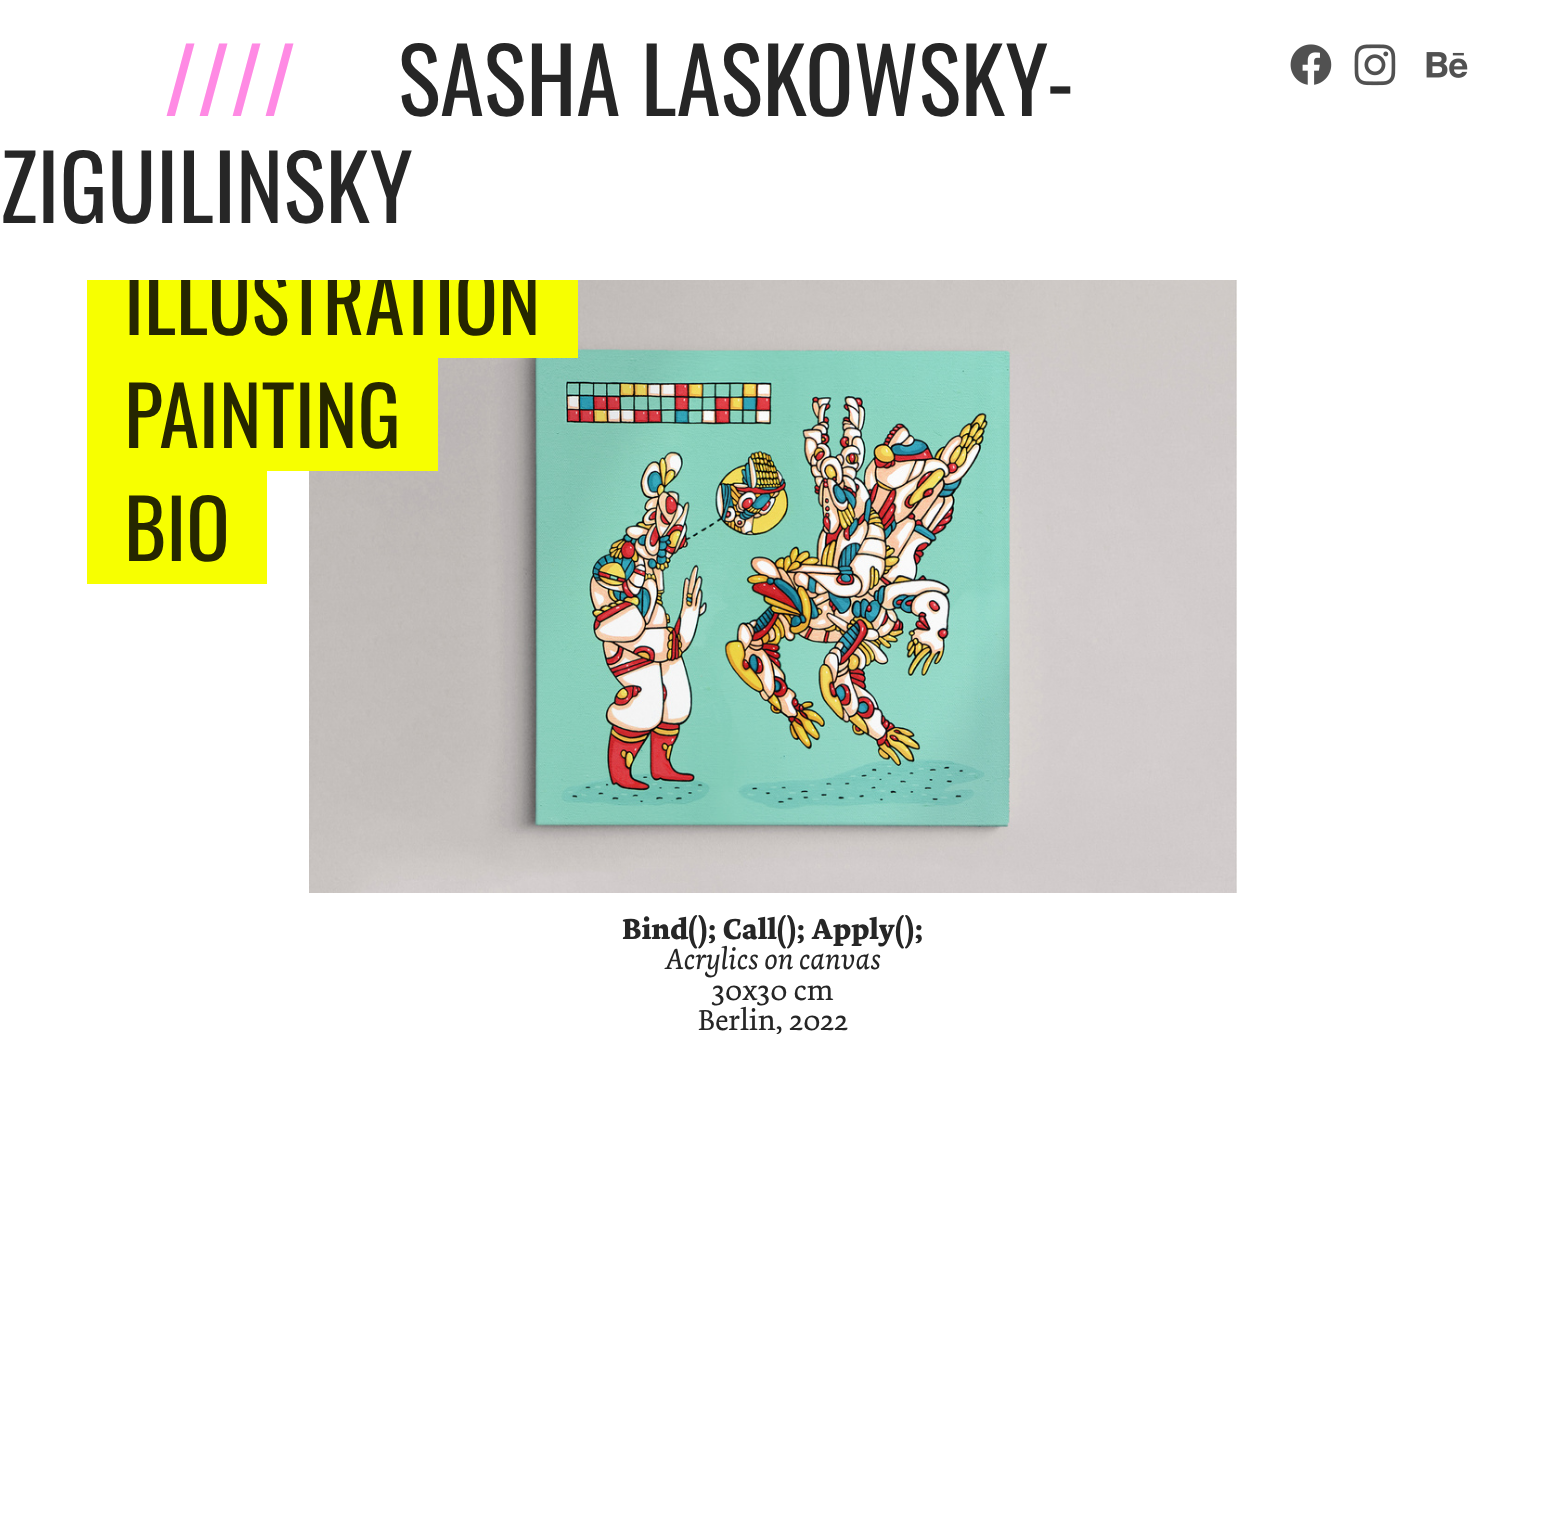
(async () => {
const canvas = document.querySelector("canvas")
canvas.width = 1546
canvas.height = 1515
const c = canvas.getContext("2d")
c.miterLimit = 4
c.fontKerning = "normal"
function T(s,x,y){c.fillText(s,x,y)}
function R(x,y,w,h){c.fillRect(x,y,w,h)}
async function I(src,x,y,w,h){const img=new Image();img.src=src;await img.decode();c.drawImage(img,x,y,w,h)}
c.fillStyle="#fff"
R(0,0,1546,1515)
c.font="89.5px Oswald"
c.fillStyle="#ff8ae4"
T("////",164,116)
c.fillStyle="#262626"
T("SASHA LASKOWSKY-",398,116)
T("ZIGUILINSKY",0,223)
await I("1.png",1290,44,42,41)
await I("2.png",1354,44,42,42)
await I("3.png",1426,52,42,26)
await I("4.png",309,280,928,613)
c.fillStyle="#f7ff00"
R(87,280,491,78)
c.font="80.75px Oswald"
c.fillStyle="#252600"
T("ILLUSTRATION",124,335)
c.fillStyle="#fff"
R(129,269,407,11)
c.fillStyle="#f7ff00"
R(124,358,314,113)
c.fillStyle="#252600"
T("PAINTING",124,448)
c.fillStyle="#f7ff00"
R(87,358,37,226)
R(124,471,143,113)
c.fillStyle="#252600"
T("BIO",124,561)
c.font="bold 30.5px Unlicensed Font"
c.fillStyle="#262626"
T("Bind(); Call(); Apply();",622,939)
c.font="italic 30.5px Unlicensed Font"
T("Acrylics on canvas",665,969)
c.font="30.5px Unlicensed Font"
T("30x30 cm",712,1000)
T("Berlin, 2022",698,1030)
})()
